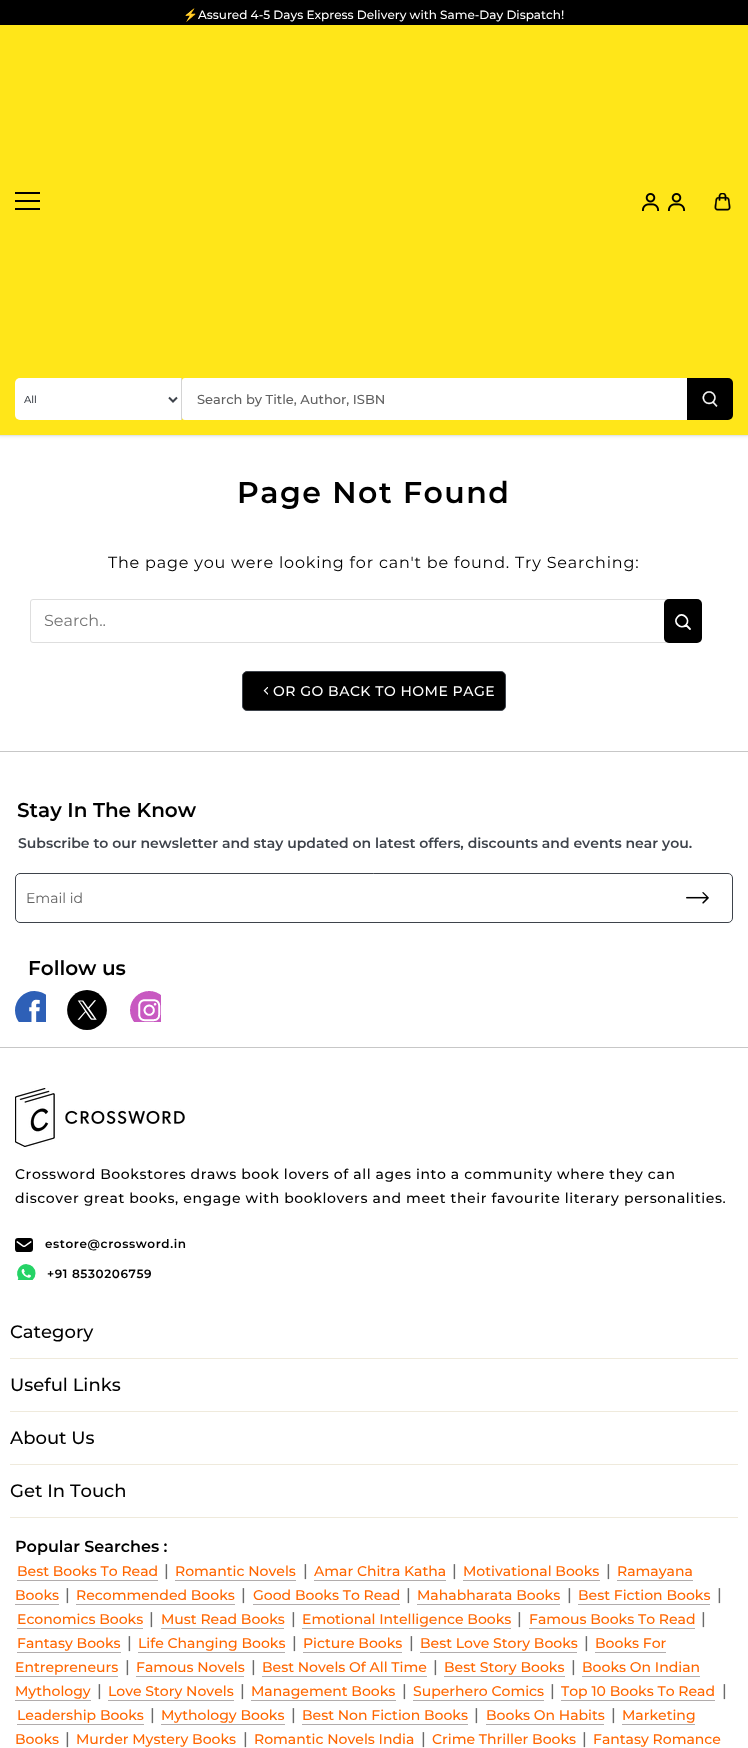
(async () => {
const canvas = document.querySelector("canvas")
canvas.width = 748
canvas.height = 1748
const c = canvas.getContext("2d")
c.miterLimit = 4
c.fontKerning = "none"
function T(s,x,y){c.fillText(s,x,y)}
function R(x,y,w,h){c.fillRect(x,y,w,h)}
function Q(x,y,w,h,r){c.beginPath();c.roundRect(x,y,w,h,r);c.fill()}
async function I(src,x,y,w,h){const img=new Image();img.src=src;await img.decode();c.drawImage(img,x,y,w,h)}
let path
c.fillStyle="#fff"
R(0,0,748,1748)
c.fillStyle="#000"
R(0,0,748,25)
c.font="12px Noto Color Emoji"
c.fillStyle="#fff"
T("⚡",183,19)
c.font="500 12px Montserrat"
T("Assured 4-5 Days Express Delivery with Same-Day Dispatch!",198,19)
c.fillStyle="#00000014"
c.filter="blur(1.5px)"
c.beginPath()
c.rect(-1,24,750,413)
c.fill()
c.filter="none"
c.fillStyle="#ffe619"
R(0,25,748,410)
c.fillStyle="#e1e5e9"
R(0,435,748,1)
c.fillStyle="#000"
R(15,192,25,2)
R(15,200,25,2)
R(15,208,25,2)
await I("1.png",641,193,19,18)
await I("1.png",667,193,19,18)
await I("2.png",714,193,17,18)
c.fillStyle="#fff"
c.beginPath()
c.roundRect(15,378,167,42,[5,0,0,5])
c.fill()
c.fillStyle="#d4d4d4"
R(181,378,1,42)
path = new Path2D("M169 397.5l4 4l4-4")
c.strokeStyle="#3e434b"
c.lineWidth=2
c.stroke(path)
c.font="500 10px Montserrat"
c.fillStyle="#3e434b"
T("All",24,403)
c.fillStyle="#fff"
c.beginPath()
c.roundRect(182,378,506,42,[3,0,0,3])
c.fill()
c.font="500 13px Montserrat"
c.fillStyle="#616161"
T("Search by Title, Author, ISBN",197,404)
c.fillStyle="#000"
c.beginPath()
c.roundRect(687,378,46,42,[0,5,5,0])
c.fill()
await I("3.png",702,391,16,16)
c.letterSpacing="1.5px"
c.font="600 30px Montserrat"
T("Page Not Found",237,503)
c.letterSpacing="0.8px"
c.font="16px Montserrat"
T("The page you were looking for can't be found. Try Searching:",108,568)
c.beginPath()
c.roundRect(30.5,599.5,649,43,2.5)
c.strokeStyle="#dedede"
c.lineWidth=1
c.stroke()
c.letterSpacing="0px"
c.fillStyle="#757575"
T("Search..",44,626)
c.fillStyle="#000"
Q(664,599,38,44,5)
path = new Path2D("M686 625c-5.5 5-13.5-2.5-8.5-8c5-6 13.5 2.5 8.5 8l4 4z")
c.strokeStyle="#fff"
c.lineWidth=1.8
c.lineCap="round"
c.lineJoin="round"
c.stroke(path)
c.beginPath()
c.roundRect(242.5,671.5,263,39,4.5)
c.fill()
c.strokeStyle="#3e434b"
c.lineWidth=1
c.lineJoin="miter"
c.stroke()
await I("4.png",263,687,5,8)
c.letterSpacing="0.5px"
c.font="500 14px Montserrat"
c.fillStyle="#fff"
T("OR GO BACK TO HOME PAGE",273,696)
c.fillStyle="#c7c7c7"
R(0,751,748,1)
c.letterSpacing="0px"
c.font="600 20px Montserrat"
c.fillStyle="#000"
T("Stay In The Know",17,817)
c.font="600 14px Montserrat"
c.fillStyle="#3e434b"
T("Subscribe to our newsletter and stay updated on latest offers, discounts and events near you.",18,848)
c.beginPath()
c.roundRect(15.5,873.5,717,49,4.5)
c.stroke()
c.font="14px Montserrat"
c.fillStyle="#616161"
T("Email id",26,903)
await I("5.png",686,892,23,12)
c.font="600 20px Montserrat"
c.fillStyle="#000"
T("Follow us",28,975)
await I("6.png",15,991,31,31)
await I("7.png",67,990,40,40)
await I("8.png",130,991,31,31)
c.fillStyle="#c7c7c7"
R(0,1047,748,1)
await I("9.png",15,1088,170,59)
c.letterSpacing="0.6px"
c.font="500 14px Montserrat"
c.fillStyle="#000"
T("Crossword Bookstores draws book lovers of all ages into a community",15,1179)
T("where they can",557,1179)
T("discover great books, engage with booklovers and meet their favourite literary",15,1203)
T("personalities.",624,1203)
await I("10.png",15,1238,18,14)
c.font="600 12px Montserrat"
T("estore@crossword.in",45,1248)
await I("11.png",17,1264,19,16)
T("+91 8530206759",47,1278)
c.fillStyle="#efeadc"
R(10,1358,728,1)
c.letterSpacing="0px"
c.font="500 18px Montserrat"
c.fillStyle="#000"
T("Category",10,1338)
c.fillStyle="#efeadc"
R(10,1411,728,1)
c.fillStyle="#000"
T("Useful Links",10,1391)
c.fillStyle="#efeadc"
R(10,1464,728,1)
c.fillStyle="#000"
T("About Us",10,1444)
c.fillStyle="#efeadc"
R(10,1517,728,1)
c.fillStyle="#000"
T("Get In Touch",10,1497)
c.font="600 16px Montserrat"
T("Popular Searches :",15,1552)
c.font="500 14px Montserrat"
c.fillStyle="#f60"
T("Best Books To Read",17,1576)
c.fillStyle="#b1acac"
R(17,1580,141,1)
c.font="500 16px Montserrat"
c.fillStyle="#6b6b6b"
T("|",164,1576)
c.font="500 14px Montserrat"
c.fillStyle="#f60"
T("Romantic Novels",175,1576)
c.fillStyle="#b1acac"
R(175,1580,121,1)
c.font="500 16px Montserrat"
c.fillStyle="#6b6b6b"
T("|",303,1576)
c.font="500 14px Montserrat"
c.fillStyle="#f60"
T("Amar Chitra Katha",314,1576)
c.fillStyle="#b1acac"
R(314,1580,132,1)
c.font="500 16px Montserrat"
c.fillStyle="#6b6b6b"
T("|",452,1576)
c.font="500 14px Montserrat"
c.fillStyle="#f60"
T("Motivational Books",463,1576)
c.fillStyle="#b1acac"
R(463,1580,137,1)
c.font="500 16px Montserrat"
c.fillStyle="#6b6b6b"
T("|",606,1576)
c.font="500 14px Montserrat"
c.fillStyle="#f60"
T("Ramayana",617,1576)
c.fillStyle="#b1acac"
R(617,1580,76,1)
c.fillStyle="#f60"
T("Books",15,1600)
c.fillStyle="#b1acac"
R(15,1604,44,1)
c.font="500 16px Montserrat"
c.fillStyle="#6b6b6b"
T("|",65,1600)
c.font="500 14px Montserrat"
c.fillStyle="#f60"
T("Recommended Books",76,1600)
c.fillStyle="#b1acac"
R(76,1604,159,1)
c.font="500 16px Montserrat"
c.fillStyle="#6b6b6b"
T("|",241,1600)
c.font="500 14px Montserrat"
c.fillStyle="#f60"
T("Good Books To Read",253,1600)
c.fillStyle="#b1acac"
R(253,1604,147,1)
c.font="500 16px Montserrat"
c.fillStyle="#6b6b6b"
T("|",406,1600)
c.font="500 14px Montserrat"
c.fillStyle="#f60"
T("Mahabharata Books",417,1600)
c.fillStyle="#b1acac"
R(417,1604,143,1)
c.font="500 16px Montserrat"
c.fillStyle="#6b6b6b"
T("|",567,1600)
c.font="500 14px Montserrat"
c.fillStyle="#f60"
T("Best Fiction Books",578,1600)
c.fillStyle="#b1acac"
R(578,1604,132,1)
c.font="500 16px Montserrat"
c.fillStyle="#6b6b6b"
T("|",717,1600)
c.font="500 14px Montserrat"
c.fillStyle="#f60"
T("Economics Books",17,1624)
c.fillStyle="#b1acac"
R(17,1628,126,1)
c.font="500 16px Montserrat"
c.fillStyle="#6b6b6b"
T("|",149,1624)
c.font="500 14px Montserrat"
c.fillStyle="#f60"
T("Must Read Books",161,1624)
c.fillStyle="#b1acac"
R(161,1628,123,1)
c.font="500 16px Montserrat"
c.fillStyle="#6b6b6b"
T("|",291,1624)
c.font="500 14px Montserrat"
c.fillStyle="#f60"
T("Emotional Intelligence Books",302,1624)
c.fillStyle="#b1acac"
R(302,1628,209,1)
c.font="500 16px Montserrat"
c.fillStyle="#6b6b6b"
T("|",517,1624)
c.font="500 14px Montserrat"
c.fillStyle="#f60"
T("Famous Books To Read",529,1624)
c.fillStyle="#b1acac"
R(529,1628,166,1)
c.font="500 16px Montserrat"
c.fillStyle="#6b6b6b"
T("|",701,1624)
c.font="500 14px Montserrat"
c.fillStyle="#f60"
T("Fantasy Books",17,1648)
c.fillStyle="#b1acac"
R(17,1652,104,1)
c.font="500 16px Montserrat"
c.fillStyle="#6b6b6b"
T("|",127,1648)
c.font="500 14px Montserrat"
c.fillStyle="#f60"
T("Life Changing Books",138,1648)
c.fillStyle="#b1acac"
R(138,1652,147,1)
c.font="500 16px Montserrat"
c.fillStyle="#6b6b6b"
T("|",292,1648)
c.font="500 14px Montserrat"
c.fillStyle="#f60"
T("Picture Books",303,1648)
c.fillStyle="#b1acac"
R(303,1652,99,1)
c.font="500 16px Montserrat"
c.fillStyle="#6b6b6b"
T("|",409,1648)
c.font="500 14px Montserrat"
c.fillStyle="#f60"
T("Best Love Story Books",420,1648)
c.fillStyle="#b1acac"
R(420,1652,157,1)
c.font="500 16px Montserrat"
c.fillStyle="#6b6b6b"
T("|",584,1648)
c.font="500 14px Montserrat"
c.fillStyle="#f60"
T("Books For",595,1648)
c.fillStyle="#b1acac"
R(595,1652,71,1)
c.fillStyle="#f60"
T("Entrepreneurs",15,1672)
c.fillStyle="#b1acac"
R(15,1676,103,1)
c.font="500 16px Montserrat"
c.fillStyle="#6b6b6b"
T("|",125,1672)
c.font="500 14px Montserrat"
c.fillStyle="#f60"
T("Famous Novels",136,1672)
c.fillStyle="#b1acac"
R(136,1676,108,1)
c.font="500 16px Montserrat"
c.fillStyle="#6b6b6b"
T("|",251,1672)
c.font="500 14px Montserrat"
c.fillStyle="#f60"
T("Best Novels Of All Time",262,1672)
c.fillStyle="#b1acac"
R(262,1676,165,1)
c.font="500 16px Montserrat"
c.fillStyle="#6b6b6b"
T("|",433,1672)
c.font="500 14px Montserrat"
c.fillStyle="#f60"
T("Best Story Books",444,1672)
c.fillStyle="#b1acac"
R(444,1676,121,1)
c.font="500 16px Montserrat"
c.fillStyle="#6b6b6b"
T("|",571,1672)
c.font="500 14px Montserrat"
c.fillStyle="#f60"
T("Books On Indian",582,1672)
c.fillStyle="#b1acac"
R(582,1676,118,1)
c.fillStyle="#f60"
T("Mythology",15,1696)
c.fillStyle="#b1acac"
R(15,1700,76,1)
c.font="500 16px Montserrat"
c.fillStyle="#6b6b6b"
T("|",97,1696)
c.font="500 14px Montserrat"
c.fillStyle="#f60"
T("Love Story Novels",108,1696)
c.fillStyle="#b1acac"
R(108,1700,126,1)
c.font="500 16px Montserrat"
c.fillStyle="#6b6b6b"
T("|",240,1696)
c.font="500 14px Montserrat"
c.fillStyle="#f60"
T("Management Books",251,1696)
c.fillStyle="#b1acac"
R(251,1700,145,1)
c.font="500 16px Montserrat"
c.fillStyle="#6b6b6b"
T("|",402,1696)
c.font="500 14px Montserrat"
c.fillStyle="#f60"
T("Superhero Comics",413,1696)
c.fillStyle="#b1acac"
R(413,1700,131,1)
c.font="500 16px Montserrat"
c.fillStyle="#6b6b6b"
T("|",550,1696)
c.font="500 14px Montserrat"
c.fillStyle="#f60"
T("Top 10 Books To Read",561,1696)
c.fillStyle="#b1acac"
R(561,1700,154,1)
c.font="500 16px Montserrat"
c.fillStyle="#6b6b6b"
T("|",722,1696)
c.font="500 14px Montserrat"
c.fillStyle="#f60"
T("Leadership Books",17,1720)
c.fillStyle="#b1acac"
R(17,1724,127,1)
c.font="500 16px Montserrat"
c.fillStyle="#6b6b6b"
T("|",150,1720)
c.font="500 14px Montserrat"
c.fillStyle="#f60"
T("Mythology Books",161,1720)
c.fillStyle="#b1acac"
R(161,1724,124,1)
c.font="500 16px Montserrat"
c.fillStyle="#6b6b6b"
T("|",291,1720)
c.font="500 14px Montserrat"
c.fillStyle="#f60"
T("Best Non Fiction Books",302,1720)
c.fillStyle="#b1acac"
R(302,1724,166,1)
c.font="500 16px Montserrat"
c.fillStyle="#6b6b6b"
T("|",474,1720)
c.font="500 14px Montserrat"
c.fillStyle="#f60"
T("Books On Habits",486,1720)
c.fillStyle="#b1acac"
R(486,1724,118,1)
c.font="500 16px Montserrat"
c.fillStyle="#6b6b6b"
T("|",611,1720)
c.font="500 14px Montserrat"
c.fillStyle="#f60"
T("Marketing",622,1720)
c.fillStyle="#b1acac"
R(622,1724,73,1)
c.fillStyle="#f60"
T("Books",15,1744)
c.font="500 16px Montserrat"
c.fillStyle="#6b6b6b"
T("|",65,1744)
c.font="500 14px Montserrat"
c.fillStyle="#f60"
T("Murder Mystery Books",76,1744)
c.font="500 16px Montserrat"
c.fillStyle="#6b6b6b"
T("|",243,1744)
c.font="500 14px Montserrat"
c.fillStyle="#f60"
T("Romantic Novels India",254,1744)
c.font="500 16px Montserrat"
c.fillStyle="#6b6b6b"
T("|",421,1744)
c.font="500 14px Montserrat"
c.fillStyle="#f60"
T("Crime Thriller Books",432,1744)
c.font="500 16px Montserrat"
c.fillStyle="#6b6b6b"
T("|",582,1744)
c.font="500 14px Montserrat"
c.fillStyle="#f60"
T("Fantasy Romance",593,1744)
})()
